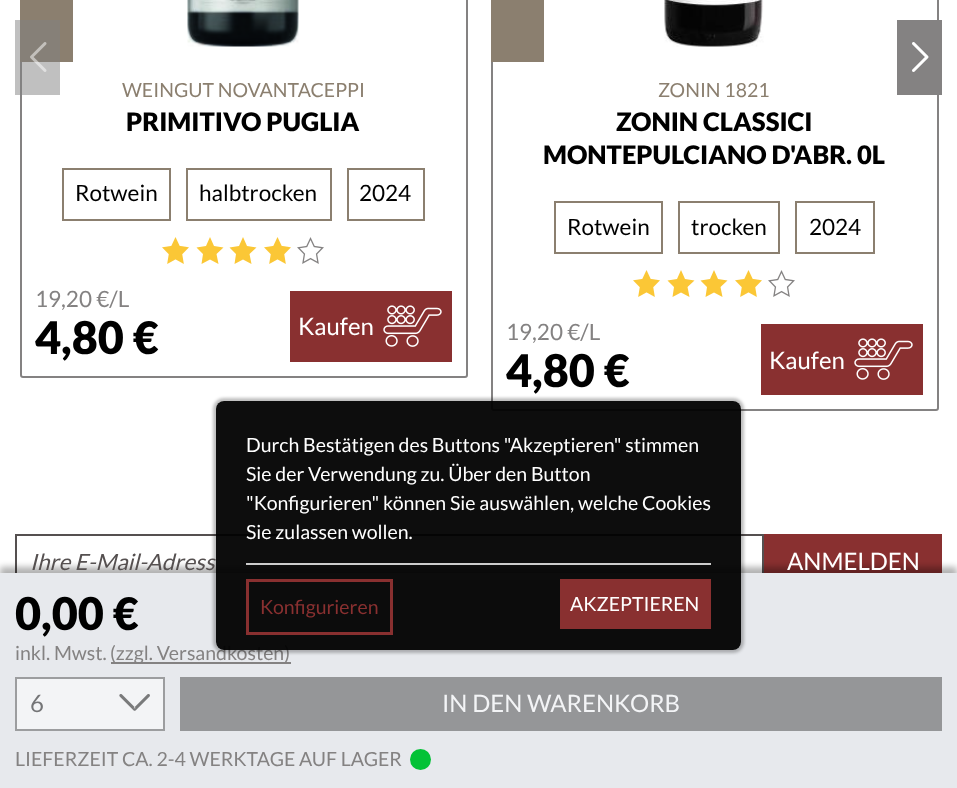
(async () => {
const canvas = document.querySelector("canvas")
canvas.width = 957
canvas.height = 788
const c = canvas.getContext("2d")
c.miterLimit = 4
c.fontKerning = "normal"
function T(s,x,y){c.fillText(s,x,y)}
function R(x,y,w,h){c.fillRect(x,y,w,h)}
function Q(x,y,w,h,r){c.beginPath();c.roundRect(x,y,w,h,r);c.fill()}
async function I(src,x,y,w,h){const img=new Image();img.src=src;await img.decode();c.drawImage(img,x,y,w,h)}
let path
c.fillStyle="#fff"
R(0,0,957,788)
c.beginPath()
c.roundRect(21,-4,446,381,2)
c.strokeStyle="#848282"
c.lineWidth=2
c.stroke()
c.fillStyle="#8b7f6f"
R(20,0,53,62)
c.fillStyle="#82828280"
R(15,20,45,75)
await I("1.png",30,42,17,30)
c.beginPath()
c.roundRect(492,-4,446,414,2)
c.stroke()
c.fillStyle="#848282"
R(897,20,45,75)
await I("2.png",912,42,17,30)
await I("3.png",187,0,112,47)
c.font="19.5px Lato"
c.fillStyle="#8b7f6f"
T("WEINGUT NOVANTACEPPI",122,97)
c.font="900 25.5px Lato"
c.fillStyle="#000"
T("PRIMITIVO PUGLIA",126,131)
c.strokeStyle="#8b7f6f"
c.strokeRect(63,169,107,51)
c.font="22.5px Lato"
T("Rotwein",75,201)
c.strokeRect(187,169,144,51)
T("halbtrocken",199,201)
c.strokeRect(348,169,76,51)
T("2024",359,201)
await I("4.png",162,237,27,27)
c.fillStyle="#fbc736"
path = new Path2D("M214 246l-4-9l-4 9l-9.5 1.5l6.5 6.5l-1.5 10l8.5-4.5l8.5 4.5l-2-10l7-6.5zm33 0l-4-9l-4 9l-9.5 1.5l6.5 6.5l-1.5 10l8.5-4.5l8.5 4.5l-2-10l7-6.5z")
c.fill(path)
await I("4.png",264,237,27,27)
await I("5.png",297,237,27,27)
c.fillStyle="#848282"
T("19,20 €/L",35,307)
c.font="900 45px Lato"
c.fillStyle="#000"
T("4,80 €",35,354)
c.fillStyle="#893030"
R(290,291,162,71)
c.font="24px Lato"
c.fillStyle="#fff"
T("Kaufen",298,335)
await I("6.png",383,305,59,42)
c.fillStyle="#8b7f6f"
R(491,0,53,62)
await I("7.png",664,0,100,47)
c.font="19.5px Lato"
T("ZONIN 1821",658,97)
c.font="900 25.5px Lato"
c.fillStyle="#000"
T("ZONIN CLASSICI",616,131)
T("MONTEPULCIANO D'ABR. 0L",543,164)
c.strokeRect(555,202,107,51)
c.font="22.5px Lato"
T("Rotwein",567,235)
c.strokeRect(679,202,100,51)
T("trocken",691,235)
c.strokeRect(796,202,78,51)
T("2024",809,235)
await I("4.png",633,270,27,27)
c.fillStyle="#fbc736"
path = new Path2D("M685 279l-4-9l-4 9l-9.5 1.5l6.5 6.5l-1.5 10l8.5-4.5l8.5 4.5l-2-10l7-6.5zm33 0l-4-9l-4 9l-9.5 1.5l6.5 6.5l-1.5 10l8.5-4.5l8.5 4.5l-2-10l7-6.5z")
c.fill(path)
await I("4.png",735,270,27,27)
await I("5.png",768,270,27,27)
c.fillStyle="#848282"
T("19,20 €/L",506,340)
c.font="900 45px Lato"
c.fillStyle="#000"
T("4,80 €",506,387)
c.fillStyle="#893030"
R(761,324,162,71)
c.font="24px Lato"
c.fillStyle="#fff"
T("Kaufen",769,369)
await I("6.png",854,338,59,42)
c.strokeStyle="#555050"
c.strokeRect(16,535,747,52)
c.fillStyle="#893030"
R(764,534,178,39)
c.fillStyle="#0000004d"
c.filter="blur(3px)"
c.beginPath()
c.rect(0,567,957,216)
c.fill()
c.filter="none"
c.fillStyle="#e7e9ed"
R(0,573,957,215)
c.font="900 45px Lato"
c.fillStyle="#000"
T("0,00 €",15,630)
c.font="19.5px Lato"
c.fillStyle="#848282"
T("inkl. Mwst.",15,660)
R(111,662,180,2)
T("(zzgl. Versandkosten)",110,660)
c.fillStyle="#f3f4f6"
R(17,679,146,50)
await I("8.png",119,694,31,17)
c.strokeStyle="#9c9d9f"
c.strokeRect(16,678,148,52)
c.font="24px Lato"
c.fillStyle="#747577"
T("6",30,712)
c.fillStyle="#959698"
R(180,677,762,54)
c.fillStyle="#f3f4f6"
T("IN DEN WARENKORB",442,712)
c.font="19.5px Lato"
c.fillStyle="#848282"
T("LIEFERZEIT CA. 2-4 WERKTAGE AUF LAGER",15,766)
c.fillStyle="#03c236"
c.beginPath()
c.arc(420.5,759.5,10.5,0,7)
c.fill()
c.save()
path = new Path2D("M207 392h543v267h-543zm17 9h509c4.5 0 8 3.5 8 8v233c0 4.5-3.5 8-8 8h-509c-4.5 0-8-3.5-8-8v-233c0-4.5 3.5-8 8-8z")
c.clip(path,"evenodd")
c.fillStyle="#00000040"
c.filter="blur(1.5px)"
c.beginPath()
c.roundRect(213,398,531,255,11)
c.fill()
c.filter="none"
c.restore()
c.fillStyle="#000000f2"
Q(216,401,525,249,8)
c.fillStyle="#fff"
T("Durch Bestätigen des Buttons \"Akzeptieren\" stimmen",246,452)
T("Sie der Verwendung zu. Über den Button",246,481)
T("\"Konfigurieren\" können Sie auswählen, welche Cookies",246,510)
T("Sie zulassen wollen.",246,539)
c.fillStyle="#ccc"
R(246,563,465,2)
c.strokeStyle="#893030"
c.lineWidth=3
c.strokeRect(247.5,580.5,144,53)
c.fillStyle="#893030"
T("Konfigurieren",260,614)
R(560,579,151,50)
c.fillStyle="#fff"
T("AKZEPTIEREN",570,611)
c.font="italic 22.5px Lato"
c.fillStyle="#555050"
T("Ihre E-Mail-Adress",30,570)
c.font="24px Lato"
c.fillStyle="#fff"
T("ANMELDEN",787,570)
})()
